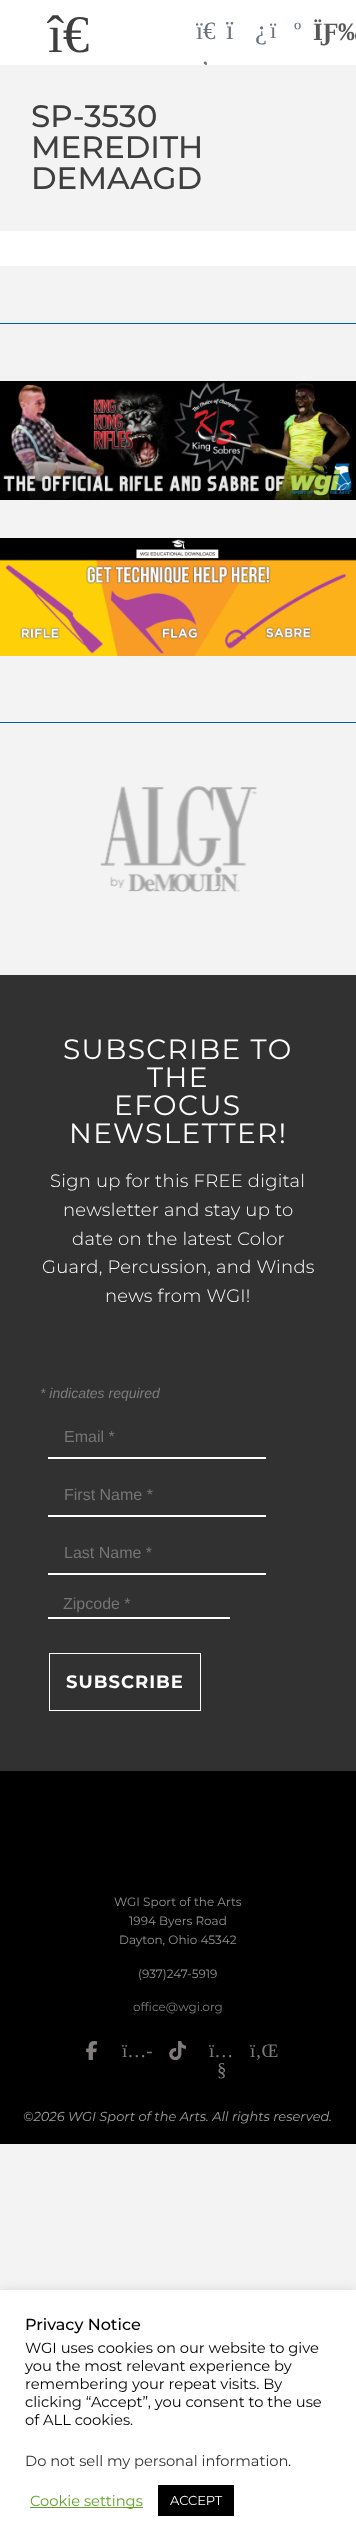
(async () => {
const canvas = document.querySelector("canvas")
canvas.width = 356
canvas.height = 2546
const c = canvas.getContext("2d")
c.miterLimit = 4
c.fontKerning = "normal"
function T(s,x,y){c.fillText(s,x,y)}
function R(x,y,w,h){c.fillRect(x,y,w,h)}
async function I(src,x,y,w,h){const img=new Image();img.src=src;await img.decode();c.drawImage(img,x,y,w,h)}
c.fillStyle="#f3f3f4"
R(0,0,356,2546)
c.fillStyle="#fff"
R(0,0,356,65)
c.font="53px Liberation Serif"
c.fillStyle="#403f3f"
T("î€",48,52)
c.font="25px Liberation Serif"
c.fillStyle="#69727d"
T("ï€",196,39)
c.save()
c.beginPath()
c.rect(0,0,356,65)
c.clip()
T("‚",201,64)
c.restore()
c.font="27px Liberation Serif"
T("ï",226,39)
T("¿",255,39)
c.font="23px Liberation Serif"
T("ï",270,38)
T("º",294,38)
c.font="bold 25px Liberation Serif"
c.fillStyle="#595757"
T("ÏƑ‰",313,40)
c.font="500 31px Montserrat"
c.fillStyle="#403f3f"
T("SP-3530",31,127)
T("MEREDITH",31,158)
T("DEMAAGD",31,189)
c.fillStyle="#fff"
R(0,231,356,35)
c.fillStyle="#005cb3"
R(0,323,356,1)
await I("1.png",0,381,356,119)
await I("2.png",0,538,356,118)
R(0,722,356,1)
await I("3.png",100,786,157,106)
c.fillStyle="#313131"
R(0,975,356,796)
c.letterSpacing="1.4px"
c.font="28px Montserrat"
c.fillStyle="#fff"
T("SUBSCRIBE TO",63,1059)
T("THE",147,1087)
T("EFOCUS",114,1115)
T("NEWSLETTER!",69,1143)
c.letterSpacing="0.25px"
c.font="300 18px Montserrat"
T("Sign up for this FREE digital",50,1187)
T("newsletter and stay up to",63,1216)
T("date on the latest Color",72,1245)
T("Guard, Percussion, and Winds",42,1273)
T("news from WGI!",105,1302)
c.letterSpacing="0px"
c.font="italic 14px Liberation Sans"
c.fillStyle="#7e7b7b"
T("* indicates required",40,1398)
c.fillStyle="#fff"
R(48,1457,218,2)
c.font="16px Liberation Sans"
c.fillStyle="#757575"
T("Email *",64,1442)
c.fillStyle="#fff"
R(48,1515,218,2)
c.fillStyle="#757575"
T("First Name *",64,1500)
c.fillStyle="#fff"
R(48,1573,218,2)
c.fillStyle="#757575"
T("Last Name *",64,1558)
c.fillStyle="#fff"
R(48,1617,182,2)
c.fillStyle="#757575"
T("Zipcode *",63,1609)
c.strokeStyle="#fff"
c.strokeRect(49.5,1653.5,151,57)
c.letterSpacing="1px"
c.font="bold 18px Montserrat"
c.fillStyle="#fff"
T("SUBSCRIBE",66,1688)
c.fillStyle="#000"
R(0,1771,356,373)
c.letterSpacing="0px"
c.font="12px Montserrat"
c.fillStyle="#949494"
T("WGI Sport of the Arts",114,1906)
T("1994 Byers Road",129,1925)
T("Dayton, Ohio 45342",119,1944)
T("(937)247-5919",138,1978)
c.fillStyle="#7e7b7b"
T("office@wgi.org",133,2011)
await I("4.png",86,2041,12,19)
c.font="19px Liberation Serif"
T("ï…-",122,2057)
await I("5.png",169,2041,17,19)
T("ï…",209,2057)
T("§",217,2076)
T("ï‚Œ",250,2057)
c.font="italic 13px Montserrat"
c.fillStyle="#a29e9e"
T("©2026 WGI Sport of the Arts. All rights reserved.",23,2121)
c.fillStyle="#acabab4d"
c.filter="blur(5px)"
c.beginPath()
c.rect(0,2289,356,256)
c.fill()
c.filter="none"
c.fillStyle="#fff"
R(0,2290,356,256)
c.font="500 16px Montserrat"
c.fillStyle="#000"
T("Privacy Notice",25,2330)
c.font="14.7px Montserrat"
T("WGI uses cookies on our website to give",25,2353)
T("you the most relevant experience by",25,2371)
T("remembering your repeat visits. By",25,2389)
T("clicking “Accept”, you consent to the use",25,2407)
T("of ALL cookies.",25,2425)
c.fillStyle="#333"
T("Do not sell my personal information",25,2466)
c.fillStyle="#000"
T(".",288,2466)
c.fillStyle="#62a329"
R(30,2507,113,1)
T("Cookie settings",30,2506)
c.fillStyle="#000"
R(158,2485,76,31)
c.font="13px Montserrat"
c.fillStyle="#fff"
T("ACCEPT",170,2505)
})()
